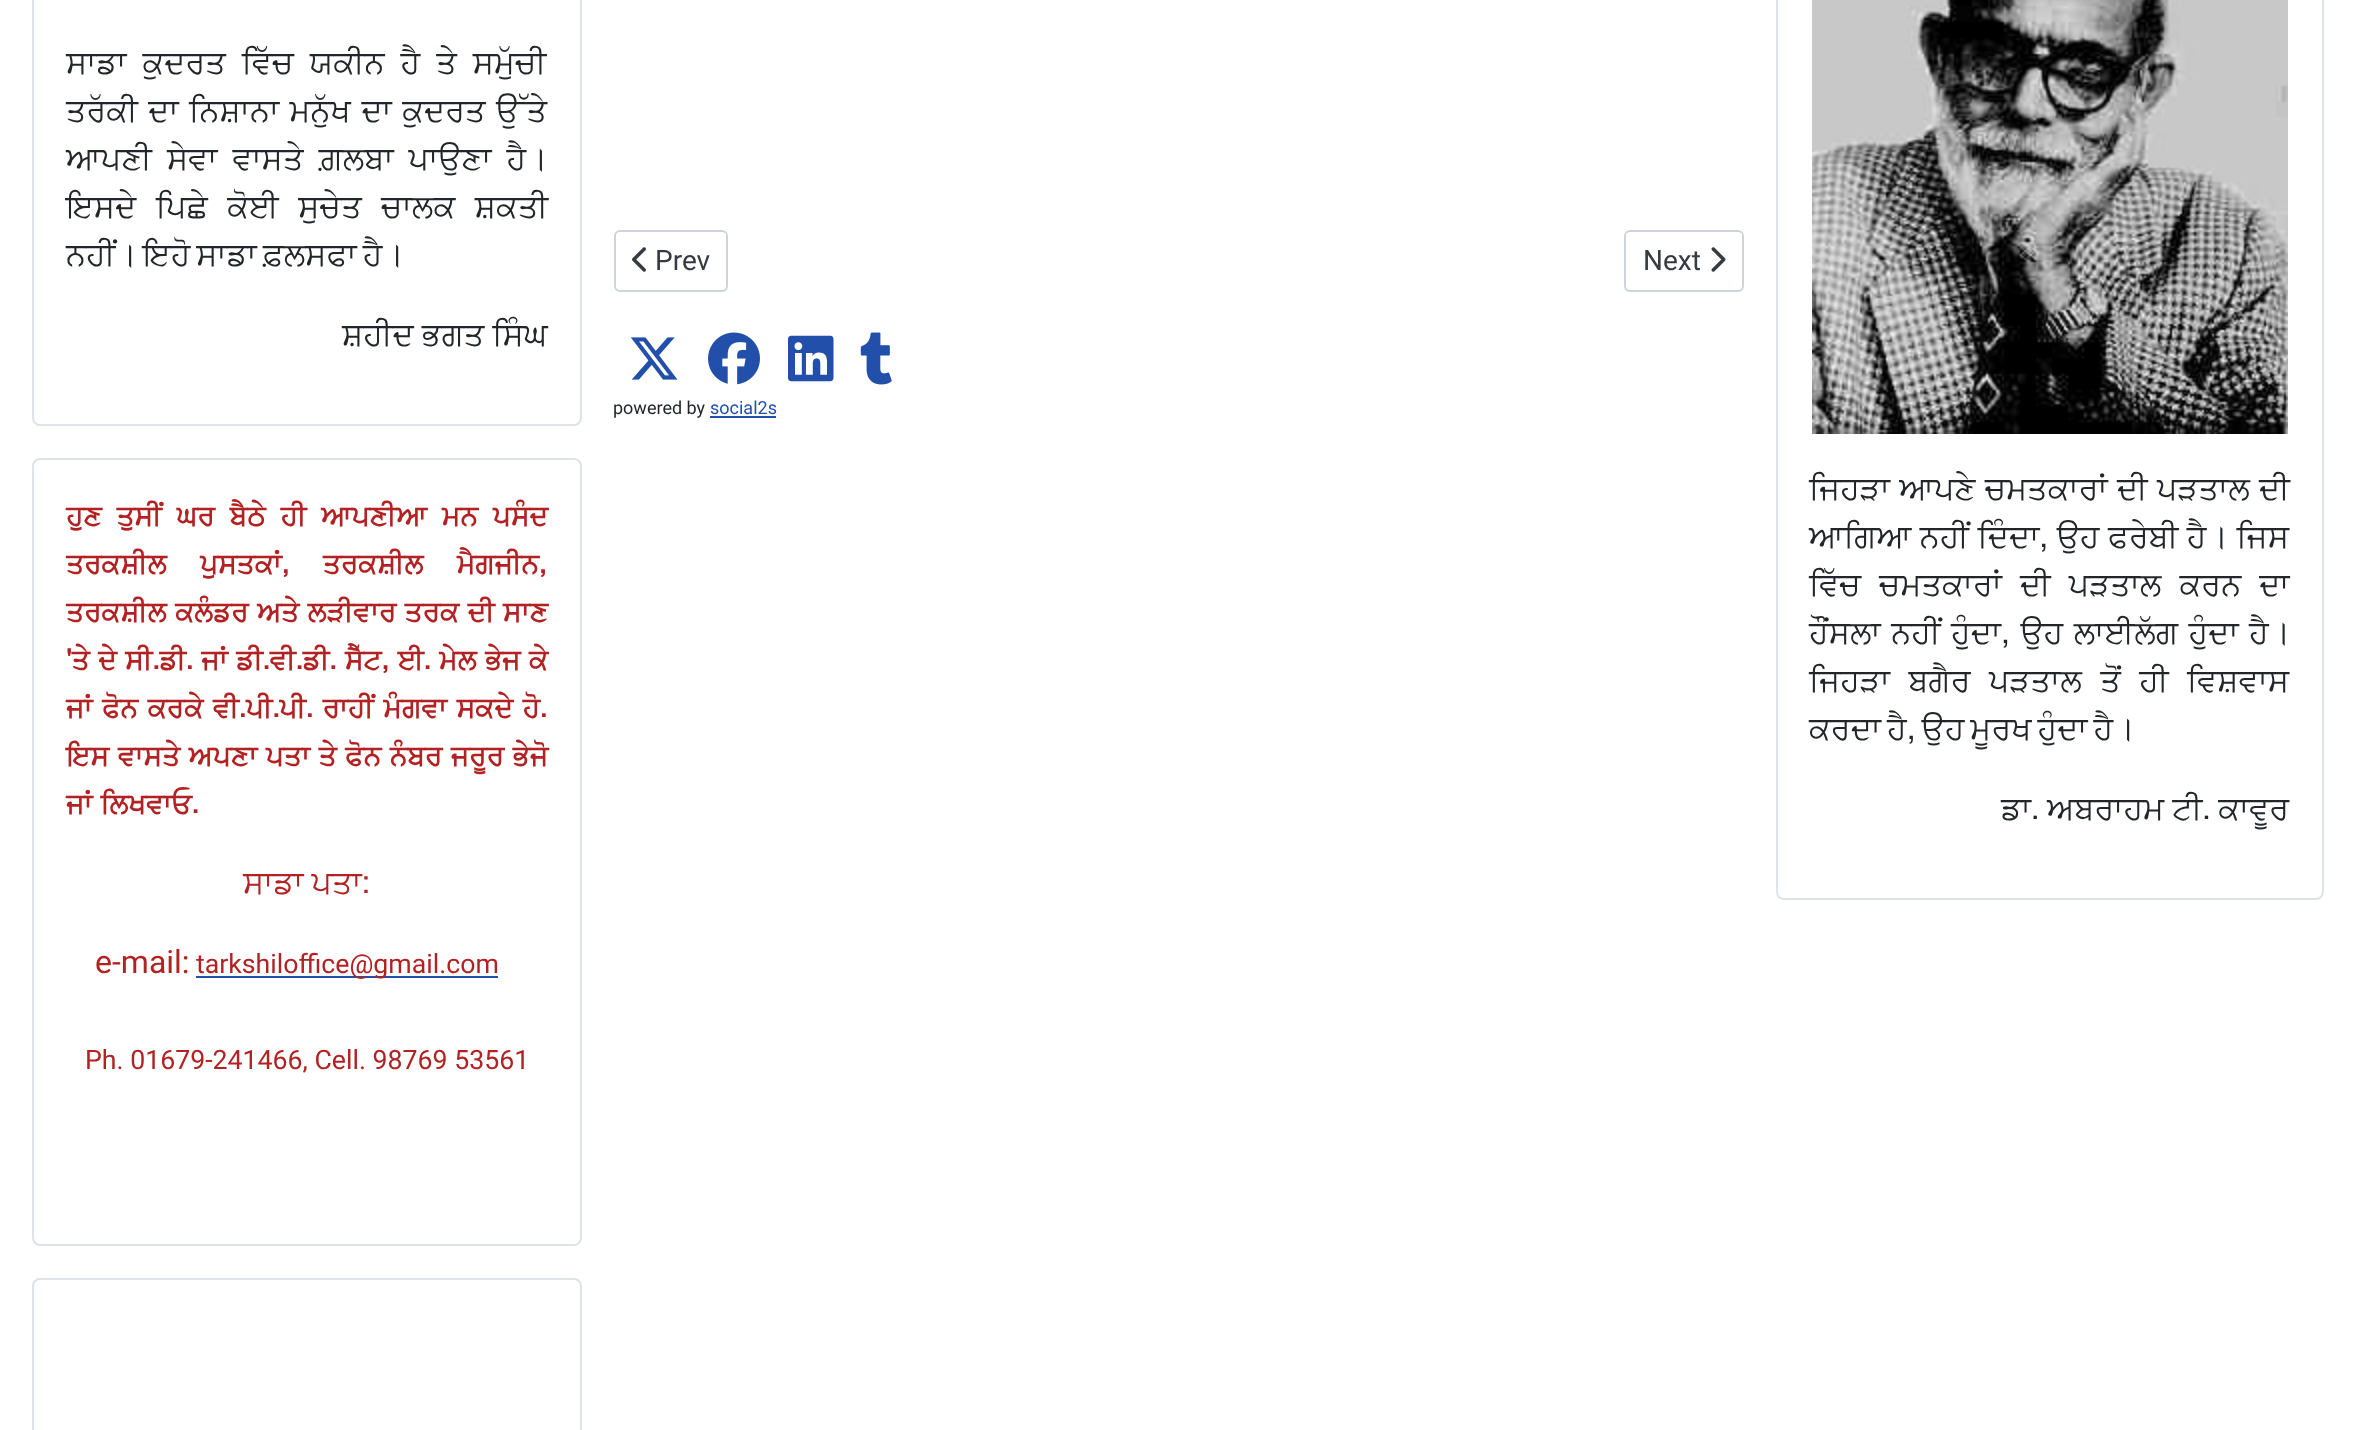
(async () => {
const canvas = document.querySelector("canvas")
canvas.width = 2356
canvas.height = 1430
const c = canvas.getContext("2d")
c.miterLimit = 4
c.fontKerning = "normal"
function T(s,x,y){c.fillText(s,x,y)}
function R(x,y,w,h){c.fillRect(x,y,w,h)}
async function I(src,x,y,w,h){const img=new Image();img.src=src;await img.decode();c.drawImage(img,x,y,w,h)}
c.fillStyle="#fff"
R(0,0,2356,1430)
c.beginPath()
c.roundRect(33,-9,548,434,7)
c.strokeStyle="#dfe3e7"
c.lineWidth=2
c.stroke()
c.wordSpacing="8px"
c.font="32px FreeSans"
c.fillStyle="#22262a"
T("ਸਾਡਾ ਕੁਦਰਤ ਵਿੱਚ ਯਕੀਨ ਹੈ ਤੇ ਸਮੁੱਚੀ",66,73)
c.wordSpacing="2.5px"
T("ਤਰੱਕੀ ਦਾ ਨਿਸ਼ਾਨਾ ਮਨੁੱਖ ਦਾ ਕੁਦਰਤ ਉੱਤੇ",66,121)
c.wordSpacing="7px"
T("ਆਪਣੀ ਸੇਵਾ ਵਾਸਤੇ ਗ਼ਲਬਾ ਪਾਉਣਾ ਹੈ।",66,169)
c.wordSpacing="11.5px"
T("ਇਸਦੇ ਪਿਛੇ ਕੋਈ ਸੁਚੇਤ ਚਾਲਕ ਸ਼ਕਤੀ",66,217)
c.wordSpacing="-2px"
T("ਨਹੀਂ। ਇਹੋ ਸਾਡਾ ਫ਼ਲਸਫਾ ਹੈ।",66,265)
c.wordSpacing="0px"
T("ਸ਼ਹੀਦ ਭਗਤ ਸਿੰਘ",342,345)
c.beginPath()
c.roundRect(33,459,548,786,7)
c.stroke()
c.wordSpacing="8px"
c.font="bold 28px FreeSans"
c.fillStyle="#b22222"
T("ਹੁਣ ਤੁਸੀਂ ਘਰ ਬੈਠੇ ਹੀ ਆਪਣੀਆ ਮਨ ਪਸੰਦ",66,525)
c.wordSpacing="26.5px"
T("ਤਰਕਸ਼ੀਲ ਪੁਸਤਕਾਂ, ਤਰਕਸ਼ੀਲ ਮੈਗਜੀਨ,",66,573)
c.wordSpacing="1.5px"
T("ਤਰਕਸ਼ੀਲ ਕਲੰਡਰ ਅਤੇ ਲੜੀਵਾਰ ਤਰਕ ਦੀ ਸਾਣ",66,621)
T("'ਤੇ ਦੇ ਸੀ.ਡੀ. ਜਾਂ ਡੀ.ਵੀ.ਡੀ. ਸੈੱਟ, ਈ. ਮੇਲ ਭੇਜ ਕੇ",66,669)
c.wordSpacing="2.75px"
T("ਜਾਂ ਫੋਨ ਕਰਕੇ ਵੀ.ਪੀ.ਪੀ. ਰਾਹੀਂ ਮੰਗਵਾ ਸਕਦੇ ਹੋ.",66,717)
c.wordSpacing="1.75px"
T("ਇਸ ਵਾਸਤੇ ਅਪਣਾ ਪਤਾ ਤੇ ਫੋਨ ਨੰਬਰ ਜਰੂਰ ਭੇਜੋ",66,765)
c.wordSpacing="1px"
T("ਜਾਂ ਲਿਖਵਾਓ.",66,813)
c.wordSpacing="0px"
c.font="32px FreeSans"
T("ਸਾਡਾ ਪਤਾ:",243,893)
c.font="32px Roboto"
T("e-mail:",95,973)
c.fillStyle="#224faa"
R(196,976,302,2)
c.font="26.7px Roboto"
c.fillStyle="#b22222"
T("tarkshiloffice@gmail.com",196,973)
T("Ph. 01679-241466, Cell. 98769 53561",85,1069)
c.beginPath()
c.roundRect(33,1279,548,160,7)
c.stroke()
c.beginPath()
c.roundRect(615,231,112,60,5)
c.strokeStyle="#ced4da"
c.stroke()
await I("1.png",632,247,14,25)
c.font="28px Roboto"
c.fillStyle="#353b41"
T("Prev",655,270)
c.beginPath()
c.roundRect(1625,231,118,60,5)
c.stroke()
T("Next",1643,270)
await I("2.png",1711,247,15,25)
await I("3.png",630,337,48,43)
await I("4.png",708,332,52,53)
await I("5.png",788,335,46,47)
await I("6.png",860,332,32,53)
c.font="18px Roboto"
c.fillStyle="#22262a"
T("powered by",613,414)
c.fillStyle="#224faa"
T("social2s",710,414)
R(710,416,66,2)
c.beginPath()
c.roundRect(1777,-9,546,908,7)
c.strokeStyle="#dfe3e7"
c.stroke()
await I("7.png",1812,0,476,434)
c.wordSpacing="1.25px"
c.font="32px FreeSans"
c.fillStyle="#22262a"
T("ਜਿਹੜਾ ਆਪਣੇ ਚਮਤਕਾਰਾਂ ਦੀ ਪੜਤਾਲ ਦੀ",1809,499)
c.wordSpacing="0.5px"
T("ਆਗਿਆ ਨਹੀਂ ਦਿੰਦਾ, ਉਹ ਫਰੇਬੀ ਹੈ। ਜਿਸ",1809,547)
c.wordSpacing="10px"
T("ਵਿੱਚ ਚਮਤਕਾਰਾਂ ਦੀ ਪੜਤਾਲ ਕਰਨ ਦਾ",1809,595)
c.wordSpacing="2.5px"
T("ਹੌਂਸਲਾ ਨਹੀਂ ਹੁੰਦਾ, ਉਹ ਲਾਈਲੱਗ ਹੁੰਦਾ ਹੈ।",1809,643)
c.wordSpacing="10.5px"
T("ਜਿਹੜਾ ਬਗੈਰ ਪੜਤਾਲ ਤੋਂ ਹੀ ਵਿਸ਼ਵਾਸ",1809,691)
c.wordSpacing="-2px"
T("ਕਰਦਾ ਹੈ, ਉਹ ਮੂਰਖ ਹੁੰਦਾ ਹੈ।",1809,739)
c.wordSpacing="0px"
T("ਡਾ. ਅਬਰਾਹਮ ਟੀ. ਕਾਵੂਰ",2001,819)
})()
